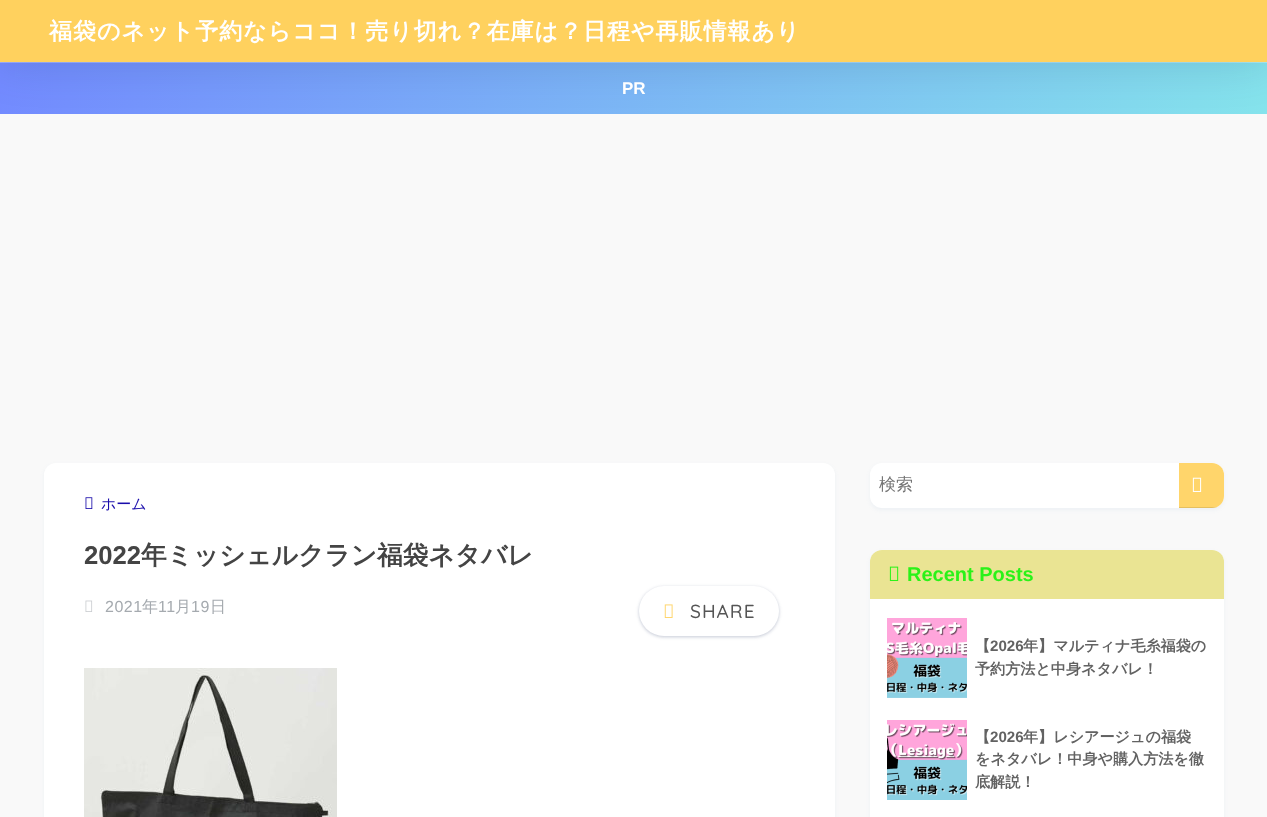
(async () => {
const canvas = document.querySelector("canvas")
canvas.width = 1267
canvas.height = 817
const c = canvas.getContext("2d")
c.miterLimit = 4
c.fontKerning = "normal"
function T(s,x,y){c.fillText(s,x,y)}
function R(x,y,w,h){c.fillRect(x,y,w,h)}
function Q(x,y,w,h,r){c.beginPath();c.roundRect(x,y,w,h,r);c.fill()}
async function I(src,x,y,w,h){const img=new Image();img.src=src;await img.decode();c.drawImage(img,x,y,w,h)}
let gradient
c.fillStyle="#f9f9f9"
R(0,0,1267,817)
gradient = c.createLinearGradient(2.6,-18,1264,93)
gradient.addColorStop(0,"#9daeff")
gradient.addColorStop(1,"#aaebf2")
c.fillStyle = gradient
R(0,62,1267,1)
gradient = c.createLinearGradient(2.6,33,1264,144)
gradient.addColorStop(0,"#738bff")
gradient.addColorStop(1,"#85e3ec")
c.fillStyle = gradient
R(0,63,1267,51)
c.fillStyle="#000c4229"
c.filter="blur(22.5px)"
c.beginPath()
c.rect(0,0,1267,62)
c.fill()
c.filter="none"
c.fillStyle="#ffd15e"
R(0,0,1267,62)
c.letterSpacing="1px"
c.font="bold 23px WenQuanYi Zen Hei"
c.fillStyle="#fff"
T("福袋のネット予約ならココ！売り切れ？在庫は？日程や再販情報あり",49,39)
c.letterSpacing="0px"
c.font="bold 17px Liberation Sans"
T("PR",622,94)
c.fillStyle="#4385bb12"
c.filter="blur(2px)"
c.beginPath()
c.roundRect(44,465,791,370,12)
c.fill()
c.filter="none"
c.fillStyle="#fff"
Q(44,463,791,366,12)
await I("1.png",85,497,8,12)
c.font="500 15px WenQuanYi Zen Hei"
c.fillStyle="#1a0dab"
T("ホーム",101,509)
c.font="bold 25.7px Liberation Sans"
c.fillStyle="#444"
T("2022",84,564)
c.font="bold 25.7px WenQuanYi Zen Hei"
T("年ミッシェルクラン福袋ネタバレ",141,564)
await I("2.png",85,600,8,12)
c.letterSpacing="0.5px"
c.font="16px Liberation Sans"
c.fillStyle="#a5aaaf"
T("2021",105,612)
c.font="500 16px WenQuanYi Zen Hei"
T("年",142,612)
c.font="16px Liberation Sans"
T("11",158,612)
c.font="500 16px WenQuanYi Zen Hei"
T("月",175,612)
c.font="16px Liberation Sans"
T("19",191,612)
c.font="500 16px WenQuanYi Zen Hei"
T("日",210,612)
c.fillStyle="#182c541a"
c.filter="blur(1.5px)"
c.beginPath()
c.roundRect(638,586,142,52,26)
c.fill()
c.filter="none"
c.filter="blur(1px)"
c.beginPath()
c.roundRect(639,587,140,50,25)
c.fill()
c.filter="none"
c.fillStyle="#fff"
Q(639,586,140,50,25)
await I("3.png",664,604,9,14)
c.letterSpacing="1px"
c.font="500 19px Quicksand"
c.fillStyle="#555"
T("SHARE",690,618)
await I("4.png",84,668,253,149)
c.fillStyle="#4385bb12"
c.filter="blur(2px)"
c.beginPath()
c.roundRect(870,465,354,45,12)
c.fill()
c.filter="none"
c.fillStyle="#fff"
Q(870,463,354,45,12)
c.letterSpacing="0px"
c.font="500 17px WenQuanYi Zen Hei"
c.fillStyle="#757575"
T("検索",879,490)
c.fillStyle="#ffd56b"
c.beginPath()
c.roundRect(1179,463,45,45,[0,12,12,0])
c.fill()
c.save()
c.beginPath()
c.roundRect(870,463,354,45,12)
c.clip()
c.fillStyle="#0000001a"
R(1179,507,42,1)
c.restore()
await I("5.png",1192,477,10,15)
c.fillStyle="#4385bb12"
c.filter="blur(2px)"
c.beginPath()
c.roundRect(870,552,354,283,12)
c.fill()
c.filter="none"
c.fillStyle="#fff"
Q(870,550,354,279,12)
c.fillStyle="#eae493"
c.beginPath()
c.roundRect(870,550,354,49,[12,12,0,0])
c.fill()
await I("6.png",889,566,10,15)
c.font="bold 20px Liberation Sans"
c.fillStyle="#2af218"
T("Recent Posts",907,581)
await I("7.png",887,618,80,80)
c.font="bold 15.1px WenQuanYi Zen Hei"
c.fillStyle="#626262"
T("【",975,651)
c.font="bold 15.1px Liberation Sans"
T("2026",990,651)
c.font="bold 15.1px WenQuanYi Zen Hei"
T("年】マルティナ毛糸福袋の",1023,651)
T("予約方法と中身ネタバレ！",975,674)
await I("8.png",887,720,80,80)
T("【",975,742)
c.font="bold 15.1px Liberation Sans"
T("2026",990,742)
c.font="bold 15.1px WenQuanYi Zen Hei"
T("年】レシアージュの福袋",1023,742)
T("をネタバレ！中身や購入方法を徹",975,764)
T("底解説！",975,787)
})()
